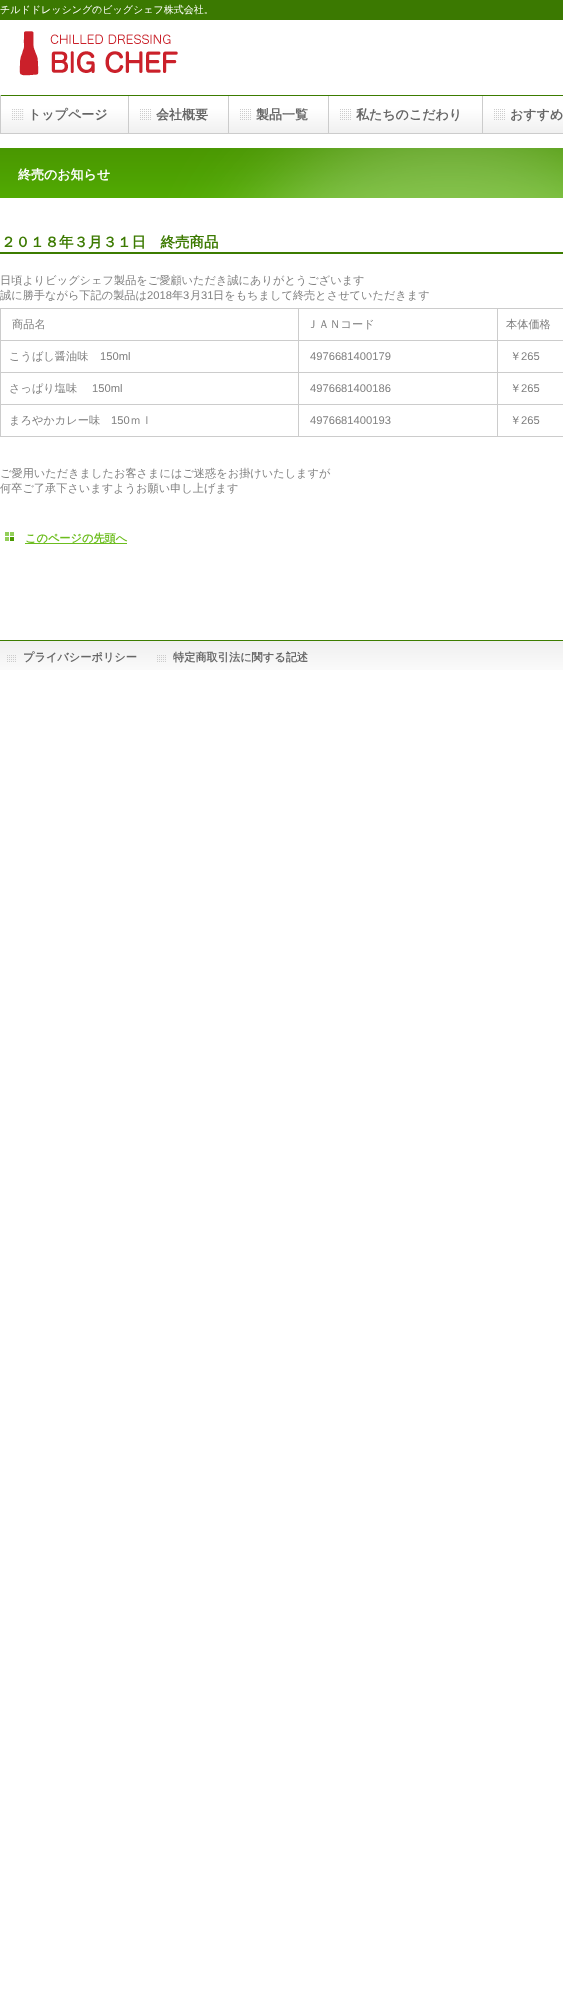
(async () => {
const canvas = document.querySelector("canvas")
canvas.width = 563
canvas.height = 1998
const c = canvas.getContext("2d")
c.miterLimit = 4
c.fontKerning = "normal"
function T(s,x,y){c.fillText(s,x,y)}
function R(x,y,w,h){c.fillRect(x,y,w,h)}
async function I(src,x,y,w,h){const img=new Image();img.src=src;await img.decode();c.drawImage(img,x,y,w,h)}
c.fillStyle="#fff"
R(0,0,563,1998)
await I("1.png",0,0,563,134)
await I("2.png",0,640,563,30)
c.font="500 10px WenQuanYi Zen Hei"
T("チルドドレッシングのビッグシェフ株式会社。",0,13)
await I("3.png",19,31,159,45)
c.fillStyle="#ccc"
R(0,95,1,38)
R(128,96,1,37)
await I("4.png",12,109,12,11)
c.font="bold 13px WenQuanYi Zen Hei"
c.fillStyle="#666"
T("トップページ",28,119)
c.fillStyle="#ccc"
R(228,96,1,37)
await I("5.png",140,109,11,11)
c.fillStyle="#666"
T("会社概要",156,119)
c.fillStyle="#ccc"
R(328,96,1,37)
await I("5.png",240,109,11,11)
c.fillStyle="#666"
T("製品一覧",256,119)
c.fillStyle="#ccc"
R(482,96,1,37)
await I("5.png",340,109,11,11)
c.fillStyle="#666"
T("私たちのこだわり",356,119)
await I("5.png",494,109,11,11)
T("おすすめ",510,119)
await I("6.png",0,148,563,50)
c.fillStyle="#fff"
T("終売のお知らせ",18,179)
c.fillStyle="#3c7c00"
R(0,252,563,2)
c.font="bold 14.5px WenQuanYi Zen Hei"
c.fillStyle="#3c7a01"
T("２０１８年３月３１日　終売商品",1,247)
c.font="500 11.2px WenQuanYi Zen Hei"
c.fillStyle="#808080"
T("日頃よりビッグシェフ製品をご愛顧いただき誠にありがとうございます",0,284)
T("誠に勝手ながら下記の製品は",0,299)
c.font="11.2px Liberation Sans"
T("2018",147,299)
c.font="500 11.2px WenQuanYi Zen Hei"
T("年",172,299)
c.font="11.2px Liberation Sans"
T("3",183,299)
c.font="500 11.2px WenQuanYi Zen Hei"
T("月",190,299)
c.font="11.2px Liberation Sans"
T("31",201,299)
c.font="500 11.2px WenQuanYi Zen Hei"
T("日をもちまして終売とさせていただきます",213,299)
c.fillStyle="#ccc"
R(0,308,563,1)
R(0,308,1,129)
c.fillStyle="#808080"
T("商品名",12,328)
c.fillStyle="#ccc"
R(497,340,66,1)
R(497,372,66,1)
R(497,404,66,1)
R(497,436,66,1)
R(497,404,1,33)
R(298,404,200,1)
R(497,372,1,33)
R(298,372,200,1)
R(497,340,1,33)
R(298,340,200,1)
R(298,436,200,1)
R(298,404,1,33)
R(0,404,299,1)
R(298,372,1,33)
R(0,372,299,1)
R(298,340,1,33)
R(0,340,299,1)
R(298,308,1,33)
c.fillStyle="#808080"
T("ＪＡＮコード",307,328)
c.fillStyle="#ccc"
R(497,308,1,33)
c.fillStyle="#808080"
T("本体価格",506,328)
T("こうばし醤油味",9,360)
c.font="11.2px Liberation Sans"
T("150ml",100,360)
T("4976681400179",310,360)
c.font="500 11.2px WenQuanYi Zen Hei"
T("￥",510,360)
c.font="11.2px Liberation Sans"
T("265",521,360)
c.font="500 11.2px WenQuanYi Zen Hei"
T("さっぱり塩味",9,392)
c.font="11.2px Liberation Sans"
T("150ml",92,392)
T("4976681400186",310,392)
c.font="500 11.2px WenQuanYi Zen Hei"
T("￥",510,392)
c.font="11.2px Liberation Sans"
T("265",521,392)
c.fillStyle="#ccc"
R(0,436,299,1)
c.font="500 11.2px WenQuanYi Zen Hei"
c.fillStyle="#808080"
T("まろやかカレー味",9,424)
c.font="11.2px Liberation Sans"
T("150",111,424)
c.font="500 11.2px WenQuanYi Zen Hei"
T("ｍｌ",130,424)
c.font="11.2px Liberation Sans"
T("4976681400193",310,424)
c.font="500 11.2px WenQuanYi Zen Hei"
T("￥",510,424)
c.font="11.2px Liberation Sans"
T("265",521,424)
c.font="500 11.2px WenQuanYi Zen Hei"
T("ご愛用いただきましたお客さまにはご迷惑をお掛けいたしますが",0,477)
T("何卒ご了承下さいますようお願い申し上げます",0,492)
await I("7.png",5,532,9,9)
c.fillStyle="#6cbd1e"
R(25,543,102,1)
c.font="bold 11.2px WenQuanYi Zen Hei"
T("このページの先頭へ",25,542)
await I("8.png",7,655,9,7)
c.fillStyle="#666"
T("プライバシーポリシー",23,661)
await I("8.png",157,655,9,7)
T("特定商取引法に関する記述",173,661)
})()
